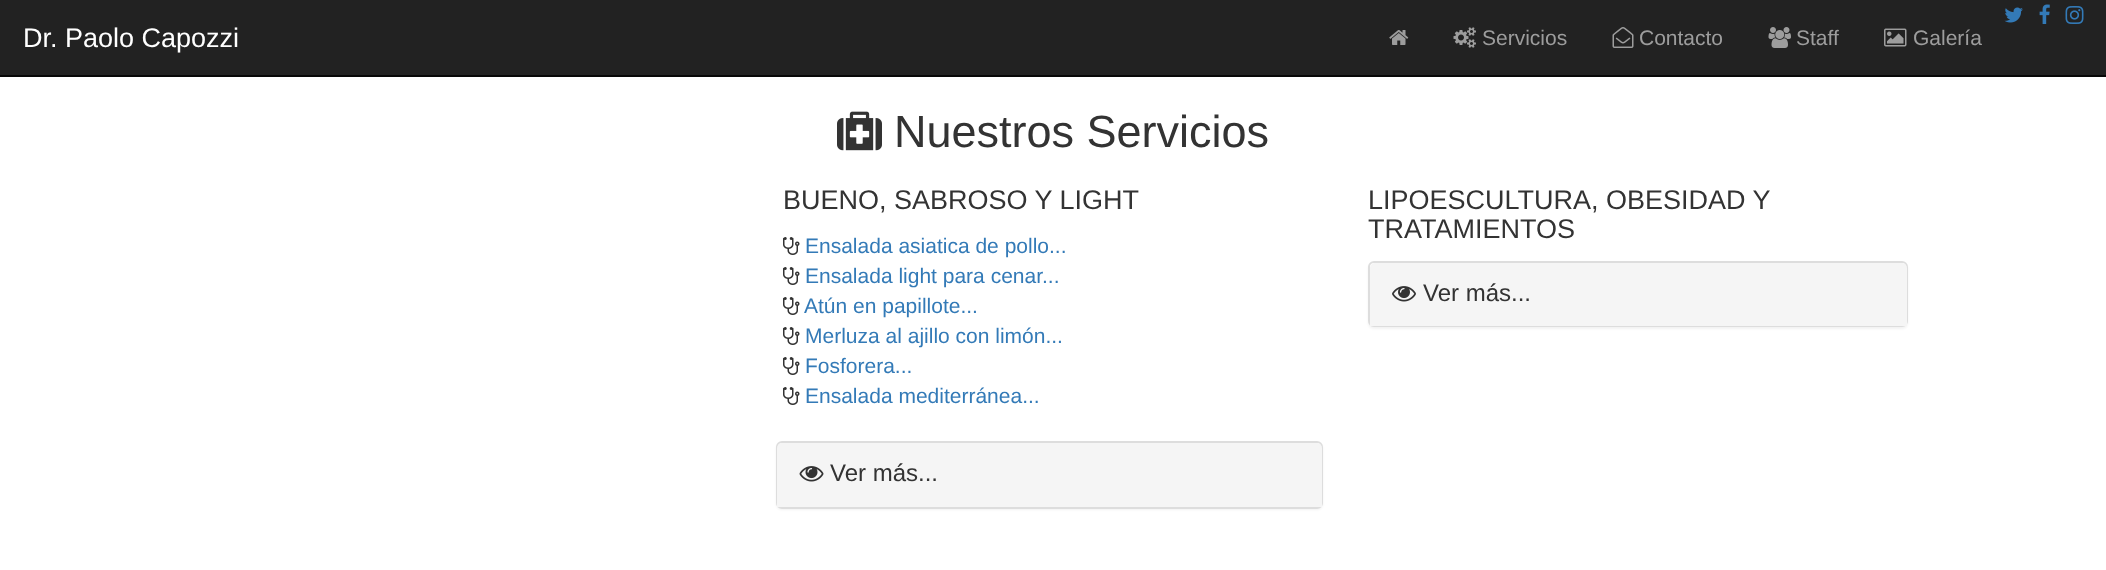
(async () => {
const canvas = document.querySelector("canvas")
canvas.width = 2106
canvas.height = 570
const c = canvas.getContext("2d")
c.miterLimit = 4
c.fontKerning = "normal"
function T(s,x,y){c.fillText(s,x,y)}
function R(x,y,w,h){c.fillRect(x,y,w,h)}
async function I(src,x,y,w,h){const img=new Image();img.src=src;await img.decode();c.drawImage(img,x,y,w,h)}
c.fillStyle="#fff"
R(0,0,2106,570)
c.fillStyle="#222"
R(0,0,2106,75)
c.fillStyle="#080808"
R(0,75,2106,2)
c.font="27px Liberation Sans"
c.fillStyle="#fff"
T("Dr. Paolo Capozzi",23,47)
await I("1.png",2004,7,19,16)
await I("2.png",2039,4,11,20)
await I("3.png",2065,6,19,18)
await I("4.png",1389,30,20,15)
await I("5.png",1453,27,23,21)
c.font="21px Liberation Sans"
c.fillStyle="#9d9d9d"
T("Servicios",1482,45)
await I("6.png",1612,27,22,21)
T("Contacto",1639,45)
await I("7.png",1768,27,23,21)
T("Staff",1796,45)
await I("8.png",1884,28,23,19)
T("Galería",1913,45)
await I("9.png",837,111,45,40)
c.font="45px Liberation Sans"
c.fillStyle="#333"
T("Nuestros Servicios",894,147)
c.font="27px Liberation Sans"
T("BUENO, SABROSO Y LIGHT",783,209)
await I("10.png",783,237,17,18)
c.font="21px Liberation Sans"
c.fillStyle="#337ab7"
T("Ensalada asiatica de pollo...",805,253)
await I("10.png",783,267,17,18)
T("Ensalada light para cenar...",805,283)
await I("10.png",783,297,17,18)
T("Atún en papillote...",804,313)
await I("10.png",783,327,17,18)
T("Merluza al ajillo con limón...",805,343)
await I("10.png",783,357,17,18)
T("Fosforera...",805,373)
await I("10.png",783,387,17,18)
T("Ensalada mediterránea...",805,403)
c.fillStyle="#0000000d"
c.filter="blur(1px)"
c.beginPath()
c.roundRect(776,443,547,67,6)
c.fill()
c.filter="none"
c.beginPath()
c.roundRect(777,442,545,66,5)
c.strokeStyle="#ddd"
c.lineWidth=2
c.stroke()
c.fillStyle="#f5f5f5"
c.beginPath()
c.roundRect(777,443,545,64,[5,5,0,0])
c.fill()
await I("11.png",799,466,25,16)
c.font="24px Liberation Sans"
c.fillStyle="#333"
T("Ver más...",830,481)
c.font="27px Liberation Sans"
T("LIPOESCULTURA, OBESIDAD Y",1368,209)
T("TRATAMIENTOS",1368,238)
c.fillStyle="#0000000d"
c.filter="blur(1px)"
c.beginPath()
c.roundRect(1368,263,540,66,6)
c.fill()
c.filter="none"
c.fillStyle="#fff"
c.beginPath()
c.roundRect(1369,262,538,64,5)
c.fill()
c.stroke()
c.fillStyle="#f5f5f5"
c.beginPath()
c.roundRect(1370,263,537,63,[5,5,0,0])
c.fill()
await I("12.png",1392,286,24,16)
c.font="24px Liberation Sans"
c.fillStyle="#333"
T("Ver más...",1423,301)
})()
